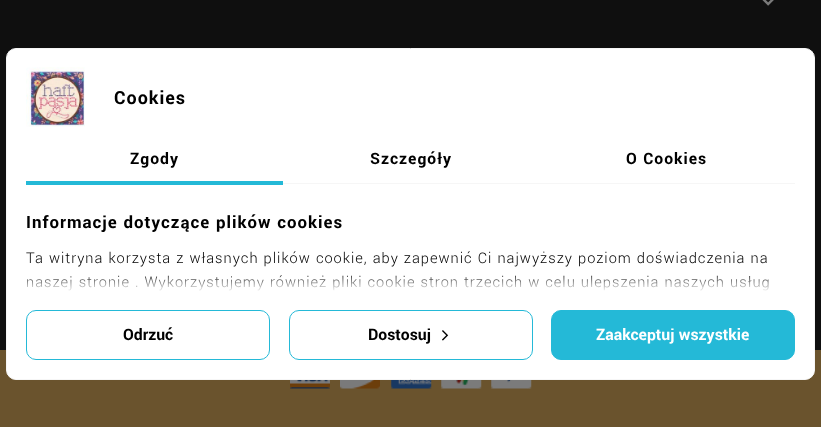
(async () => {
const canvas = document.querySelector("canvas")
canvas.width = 821
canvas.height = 427
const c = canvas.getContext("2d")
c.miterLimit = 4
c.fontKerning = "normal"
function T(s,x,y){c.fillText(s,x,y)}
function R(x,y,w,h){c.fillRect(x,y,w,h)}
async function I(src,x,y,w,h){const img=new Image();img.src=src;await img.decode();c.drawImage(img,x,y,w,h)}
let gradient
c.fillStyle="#6a532d"
R(0,0,821,427)
c.fillStyle="#0f0f0f"
R(0,0,821,350)
await I("1.png",762,0,12,6)
c.fillStyle="#fff"
c.beginPath()
c.roundRect(6.5,48.5,808,331,9.5)
c.fill()
c.strokeStyle="#f6f6f6"
c.stroke()
await I("2.png",26,67,59,60)
c.letterSpacing="1px"
c.font="bold 20px Yantramanav"
c.fillStyle="#000"
T("Cookies",114,104)
c.fillStyle="#f6f6f6"
R(283,183,512,1)
c.fillStyle="#24b9d7"
R(26,181,257,4)
c.font="bold 17.5px Yantramanav"
c.fillStyle="#000"
T("Zgody",130,164)
T("Szczegóły",370,164)
T("O Cookies",626,164)
c.font="bold 18.75px Yantramanav"
T("Informacje dotyczące plików cookies",26,228)
c.font="300 16.25px Yantramanav"
T("Ta witryna korzysta z własnych plików cookie, aby zapewnić Ci najwyższy poziom doświadczenia na",26,263)
T("naszej stronie . Wykorzystujemy również pliki cookie stron trzecich w celu ulepszenia naszych usług",26,287)
gradient = c.createLinearGradient(411,379,411,273)
gradient.addColorStop(.82,"#fff")
gradient.addColorStop(1,"#ffffff00")
c.fillStyle = gradient
c.beginPath()
c.roundRect(8,273,806,106,[0,0,9,9])
c.fill()
c.beginPath()
c.roundRect(26.5,310.5,243,49,9.5)
c.strokeStyle="#24b9d7"
c.stroke()
c.letterSpacing="0px"
c.font="bold 17.5px Yantramanav"
c.fillStyle="#000"
T("Odrzuć",123,340)
c.beginPath()
c.roundRect(289.5,310.5,243,49,9.5)
c.stroke()
T("Dostosuj",368,340)
await I("3.png",442,330,7,11)
c.fillStyle="#24b9d7"
c.beginPath()
c.roundRect(551.5,310.5,243,49,9.5)
c.fill()
c.stroke()
c.fillStyle="#fff"
T("Zaakceptuj wszystkie",596,340)
await I("4.png",290,380,40,9)
await I("5.png",340,380,40,9)
await I("6.png",391,380,41,9)
await I("7.png",441,380,41,9)
await I("8.png",491,380,41,9)
})()
